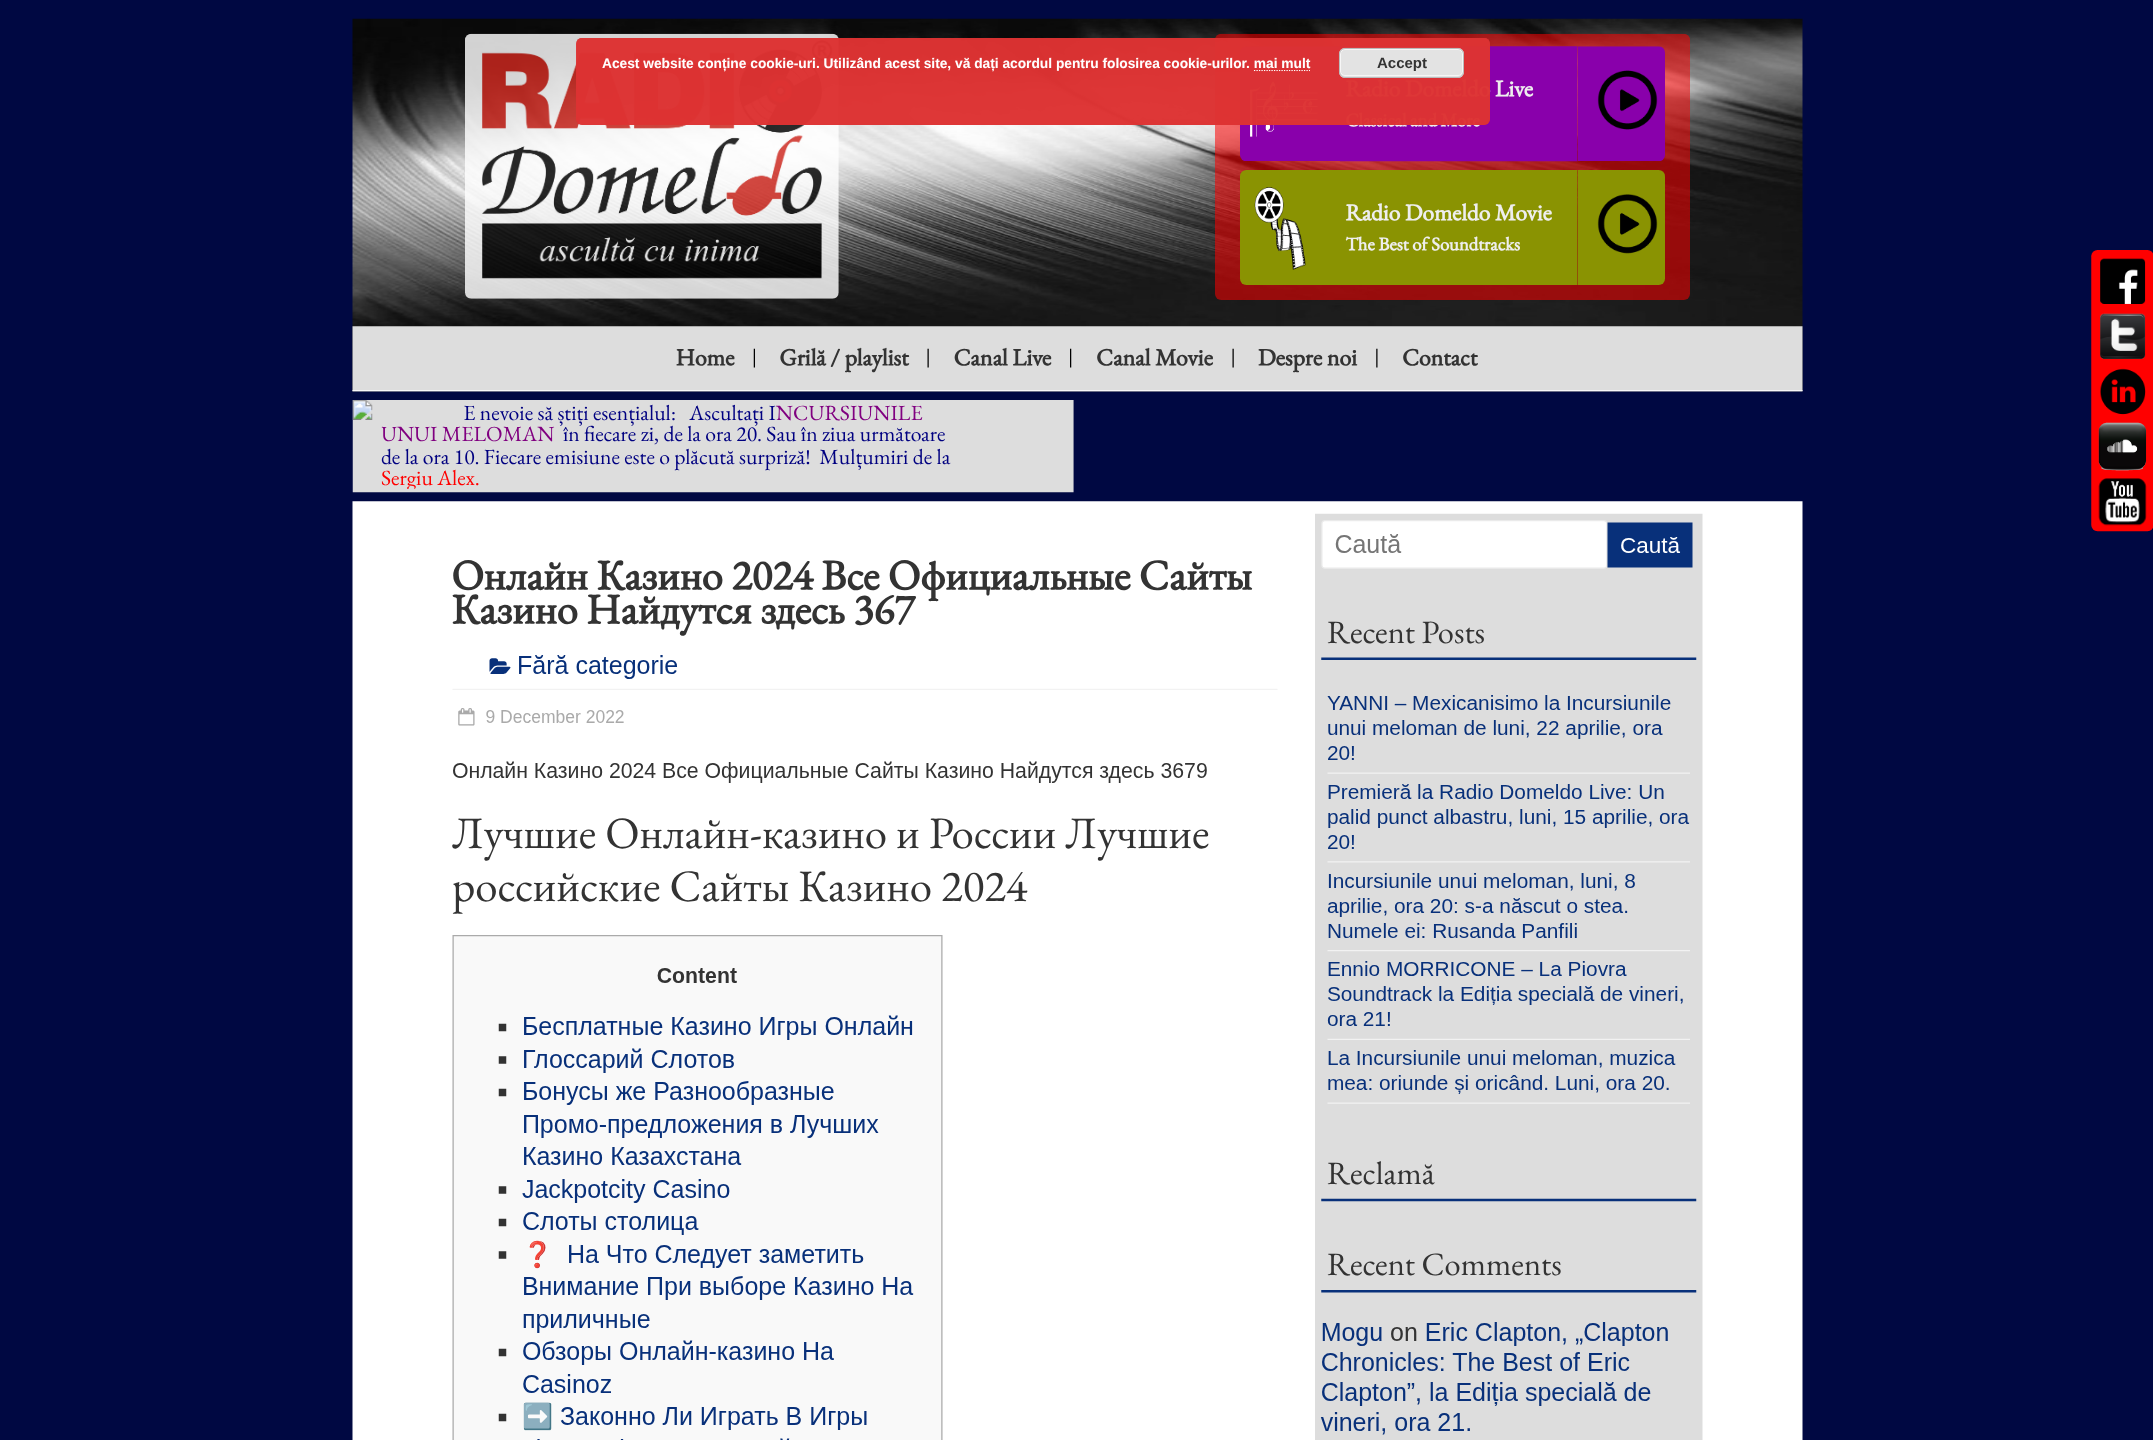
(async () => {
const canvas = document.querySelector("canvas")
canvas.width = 2153
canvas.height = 1440
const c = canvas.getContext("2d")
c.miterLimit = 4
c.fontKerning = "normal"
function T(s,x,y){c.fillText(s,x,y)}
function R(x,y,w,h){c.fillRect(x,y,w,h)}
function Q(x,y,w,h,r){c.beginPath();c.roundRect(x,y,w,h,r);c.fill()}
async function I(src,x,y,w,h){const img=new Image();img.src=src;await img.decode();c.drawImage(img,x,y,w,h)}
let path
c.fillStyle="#000842"
R(0,0,2153,1440)
await I("1.png",352,0,1801,1440)
c.fillStyle="#dd3333d9"
Q(576,38,914,87,6)
c.font="bold 13.75px Liberation Sans"
c.fillStyle="#fff"
T("Acest website conține cookie-uri. Utilizând acest site, vă dați acordul pentru folosirea cookie-urilor. mai mult",602,68)
c.fillStyle="#e3e3e3"
Q(1339,48,125,30,6)
c.beginPath()
c.roundRect(1340.5,49.5,122,26,4.5)
c.strokeStyle="#f6f6f6"
c.stroke()
c.beginPath()
c.roundRect(1339.5,48.5,124,29,5.5)
c.strokeStyle="#bbb"
c.stroke()
c.font="bold 15px Liberation Sans"
c.fillStyle="#333"
T("Accept",1377,68)
path = new Path2D("M1254 70.5h56")
c.strokeStyle="#fff"
c.lineWidth=1.2
c.setLineDash([1.25,1.25])
c.stroke(path)
})()
